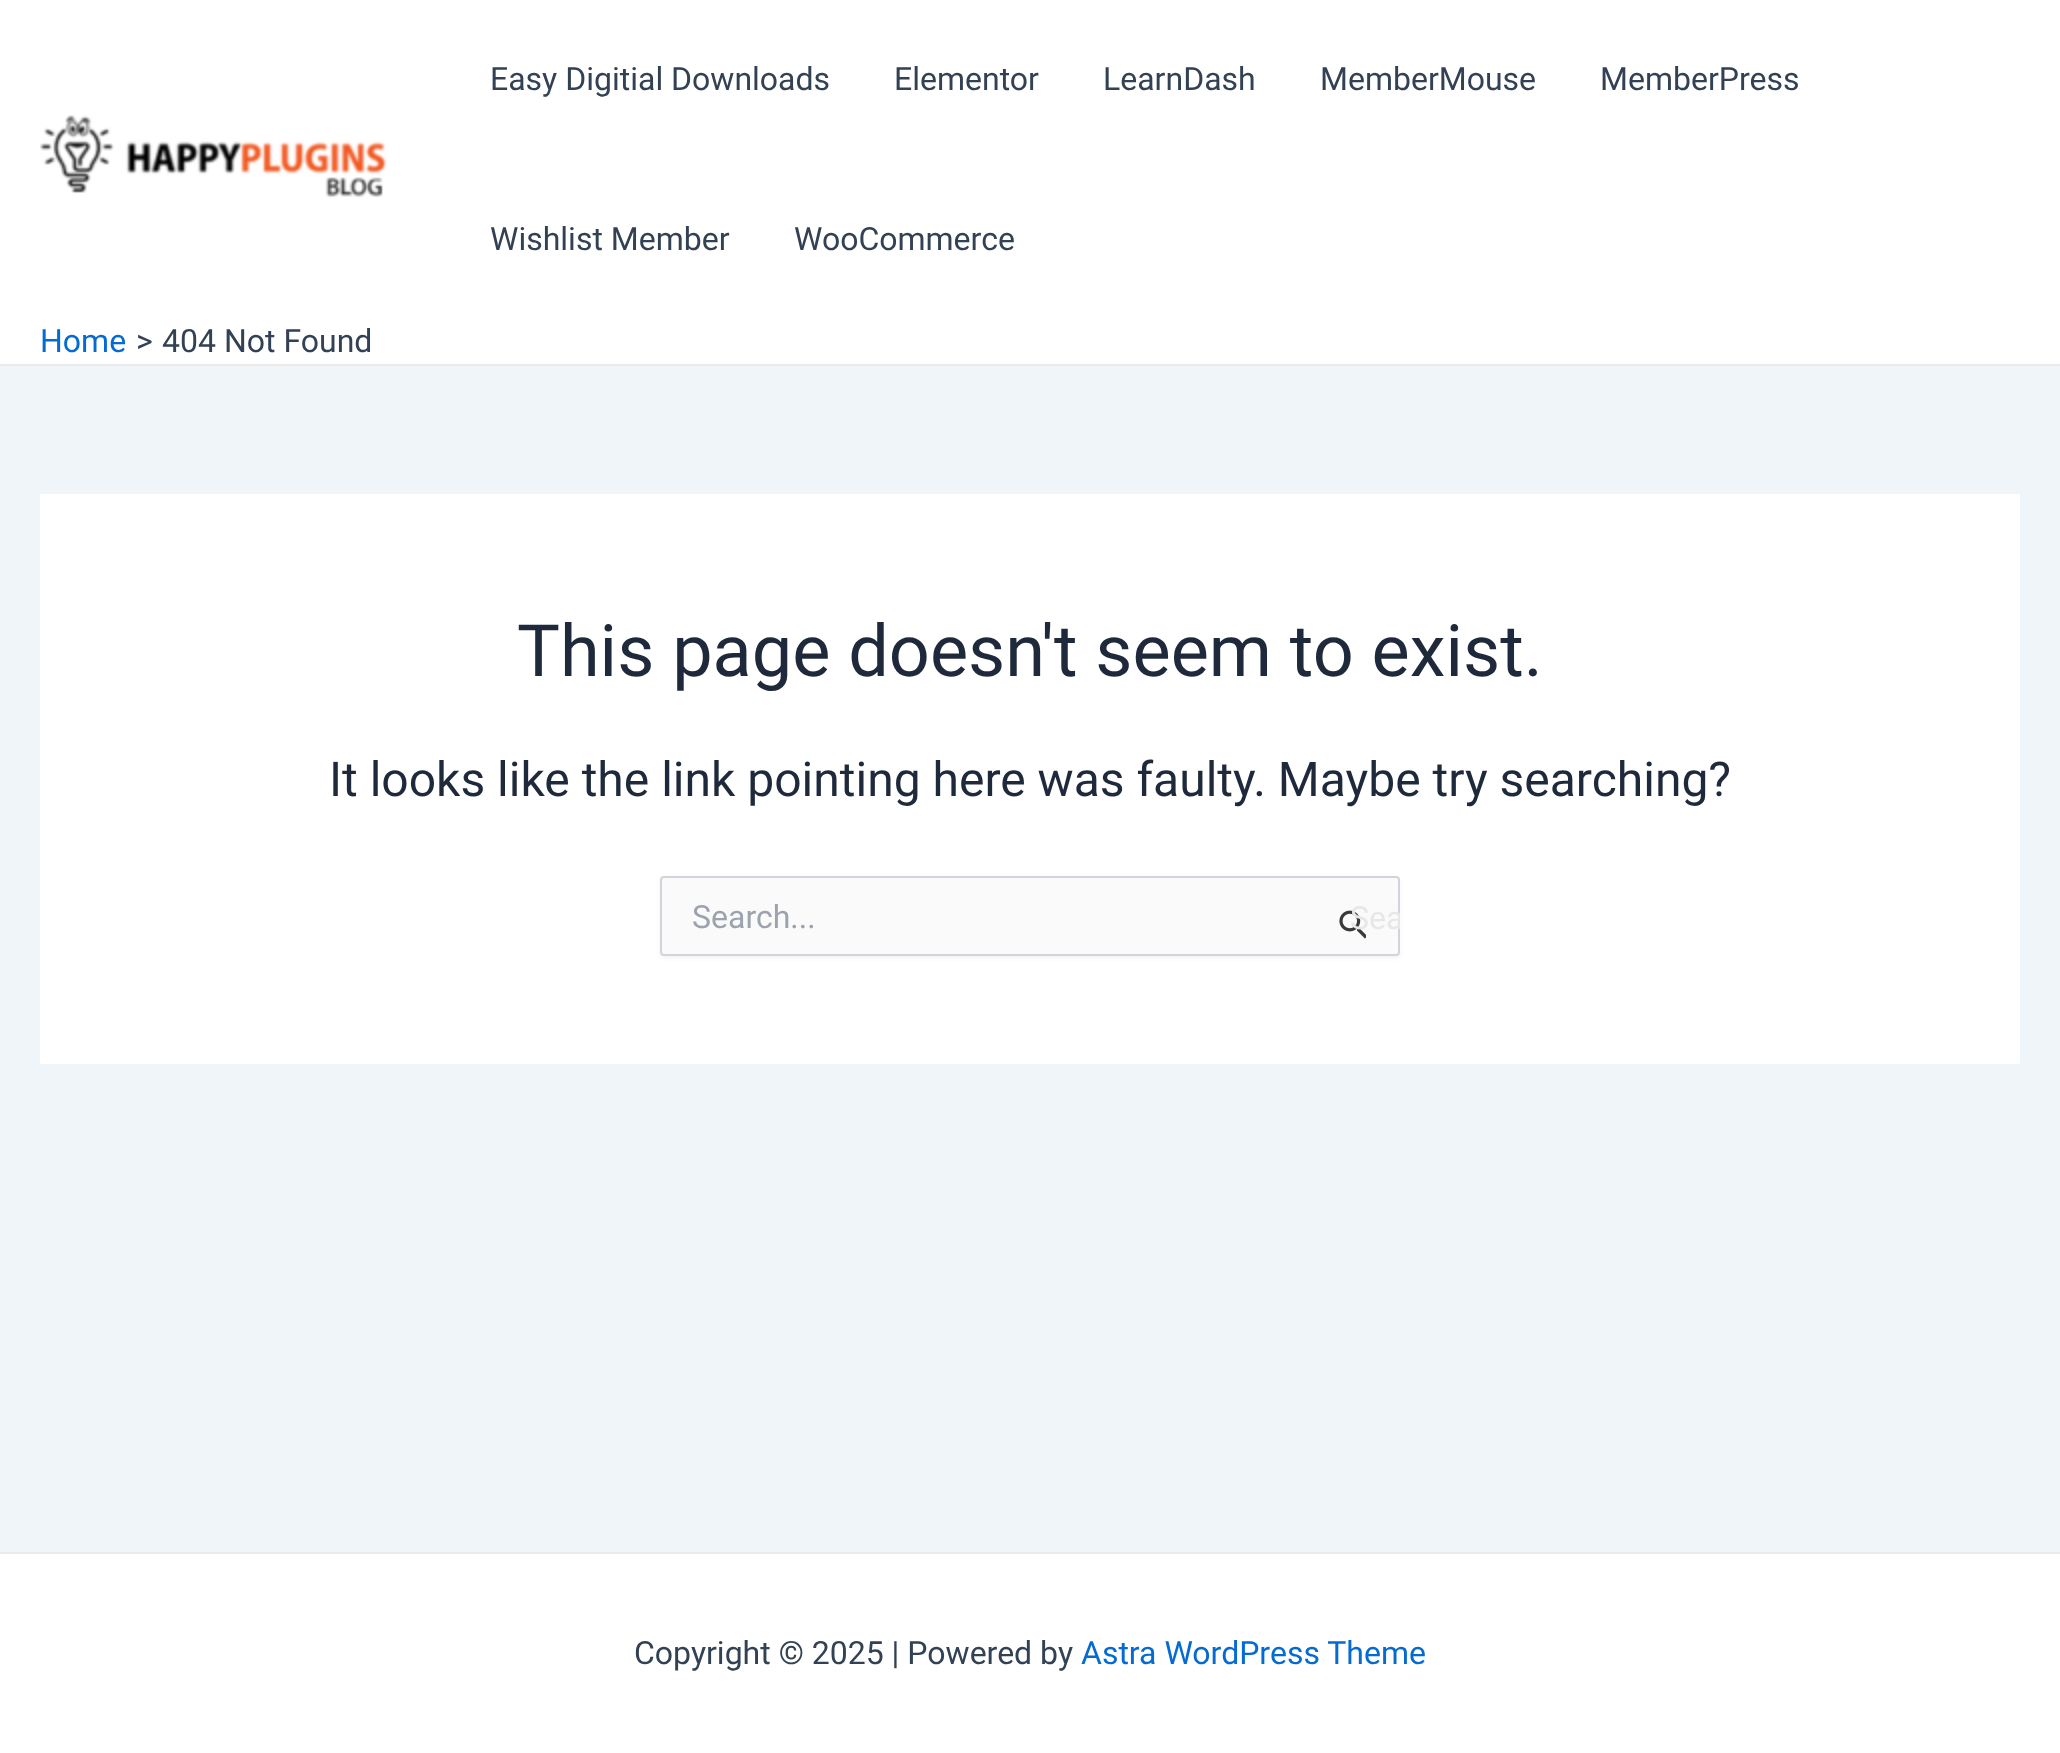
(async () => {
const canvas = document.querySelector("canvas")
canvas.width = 2060
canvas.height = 1753
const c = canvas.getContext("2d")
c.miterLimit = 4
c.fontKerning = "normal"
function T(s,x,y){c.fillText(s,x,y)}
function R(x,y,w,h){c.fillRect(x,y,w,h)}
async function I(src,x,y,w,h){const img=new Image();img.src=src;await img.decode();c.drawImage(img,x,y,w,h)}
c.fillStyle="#f0f5fa"
R(0,0,2060,1753)
c.fillStyle="#fff"
R(0,0,2060,364)
c.fillStyle="#eaeaea"
R(0,364,2060,2)
await I("1.png",40,115,346,83)
c.font="32px Roboto"
c.fillStyle="#334155"
T("Easy Digitial Downloads",490,90)
T("Elementor",894,90)
T("LearnDash",1103,90)
T("MemberMouse",1320,90)
T("MemberPress",1600,90)
T("Wishlist Member",490,250)
T("WooCommerce",794,250)
c.fillStyle="#046bd2"
T("Home",40,352)
c.fillStyle="#334155"
T(">",136,352)
T("404 Not Found",162,352)
c.fillStyle="#fff"
R(40,494,1980,570)
c.font="72px Roboto"
c.fillStyle="#1e293b"
T("This page doesn't seem to exist.",517,676)
c.font="48px Roboto"
T("It looks like the link pointing here was faulty. Maybe try searching?",329,796)
c.fillStyle="#0000000d"
c.filter="blur(2px)"
c.beginPath()
c.roundRect(660,878,740,80,4)
c.fill()
c.filter="none"
c.fillStyle="#fafafa"
c.beginPath()
c.roundRect(661,877,738,78,3)
c.fill()
c.strokeStyle="#d1d5db"
c.lineWidth=2
c.stroke()
c.font="32px Roboto"
c.fillStyle="#9ca3af"
T("Search...",692,928)
await I("2.png",1339,910,27,29)
c.save()
c.beginPath()
c.roundRect(1310,876,90,84,4)
c.clip()
c.fillStyle="#e7e7e8"
T("Sea",1350,929)
c.restore()
c.fillStyle="#fff"
R(0,1554,2060,199)
c.fillStyle="#eaeaea"
R(0,1552,2060,2)
c.fillStyle="#334155"
T("Copyright © 2025 | Powered by",634,1664)
c.fillStyle="#046bd2"
T("Astra WordPress Theme",1081,1664)
})()
